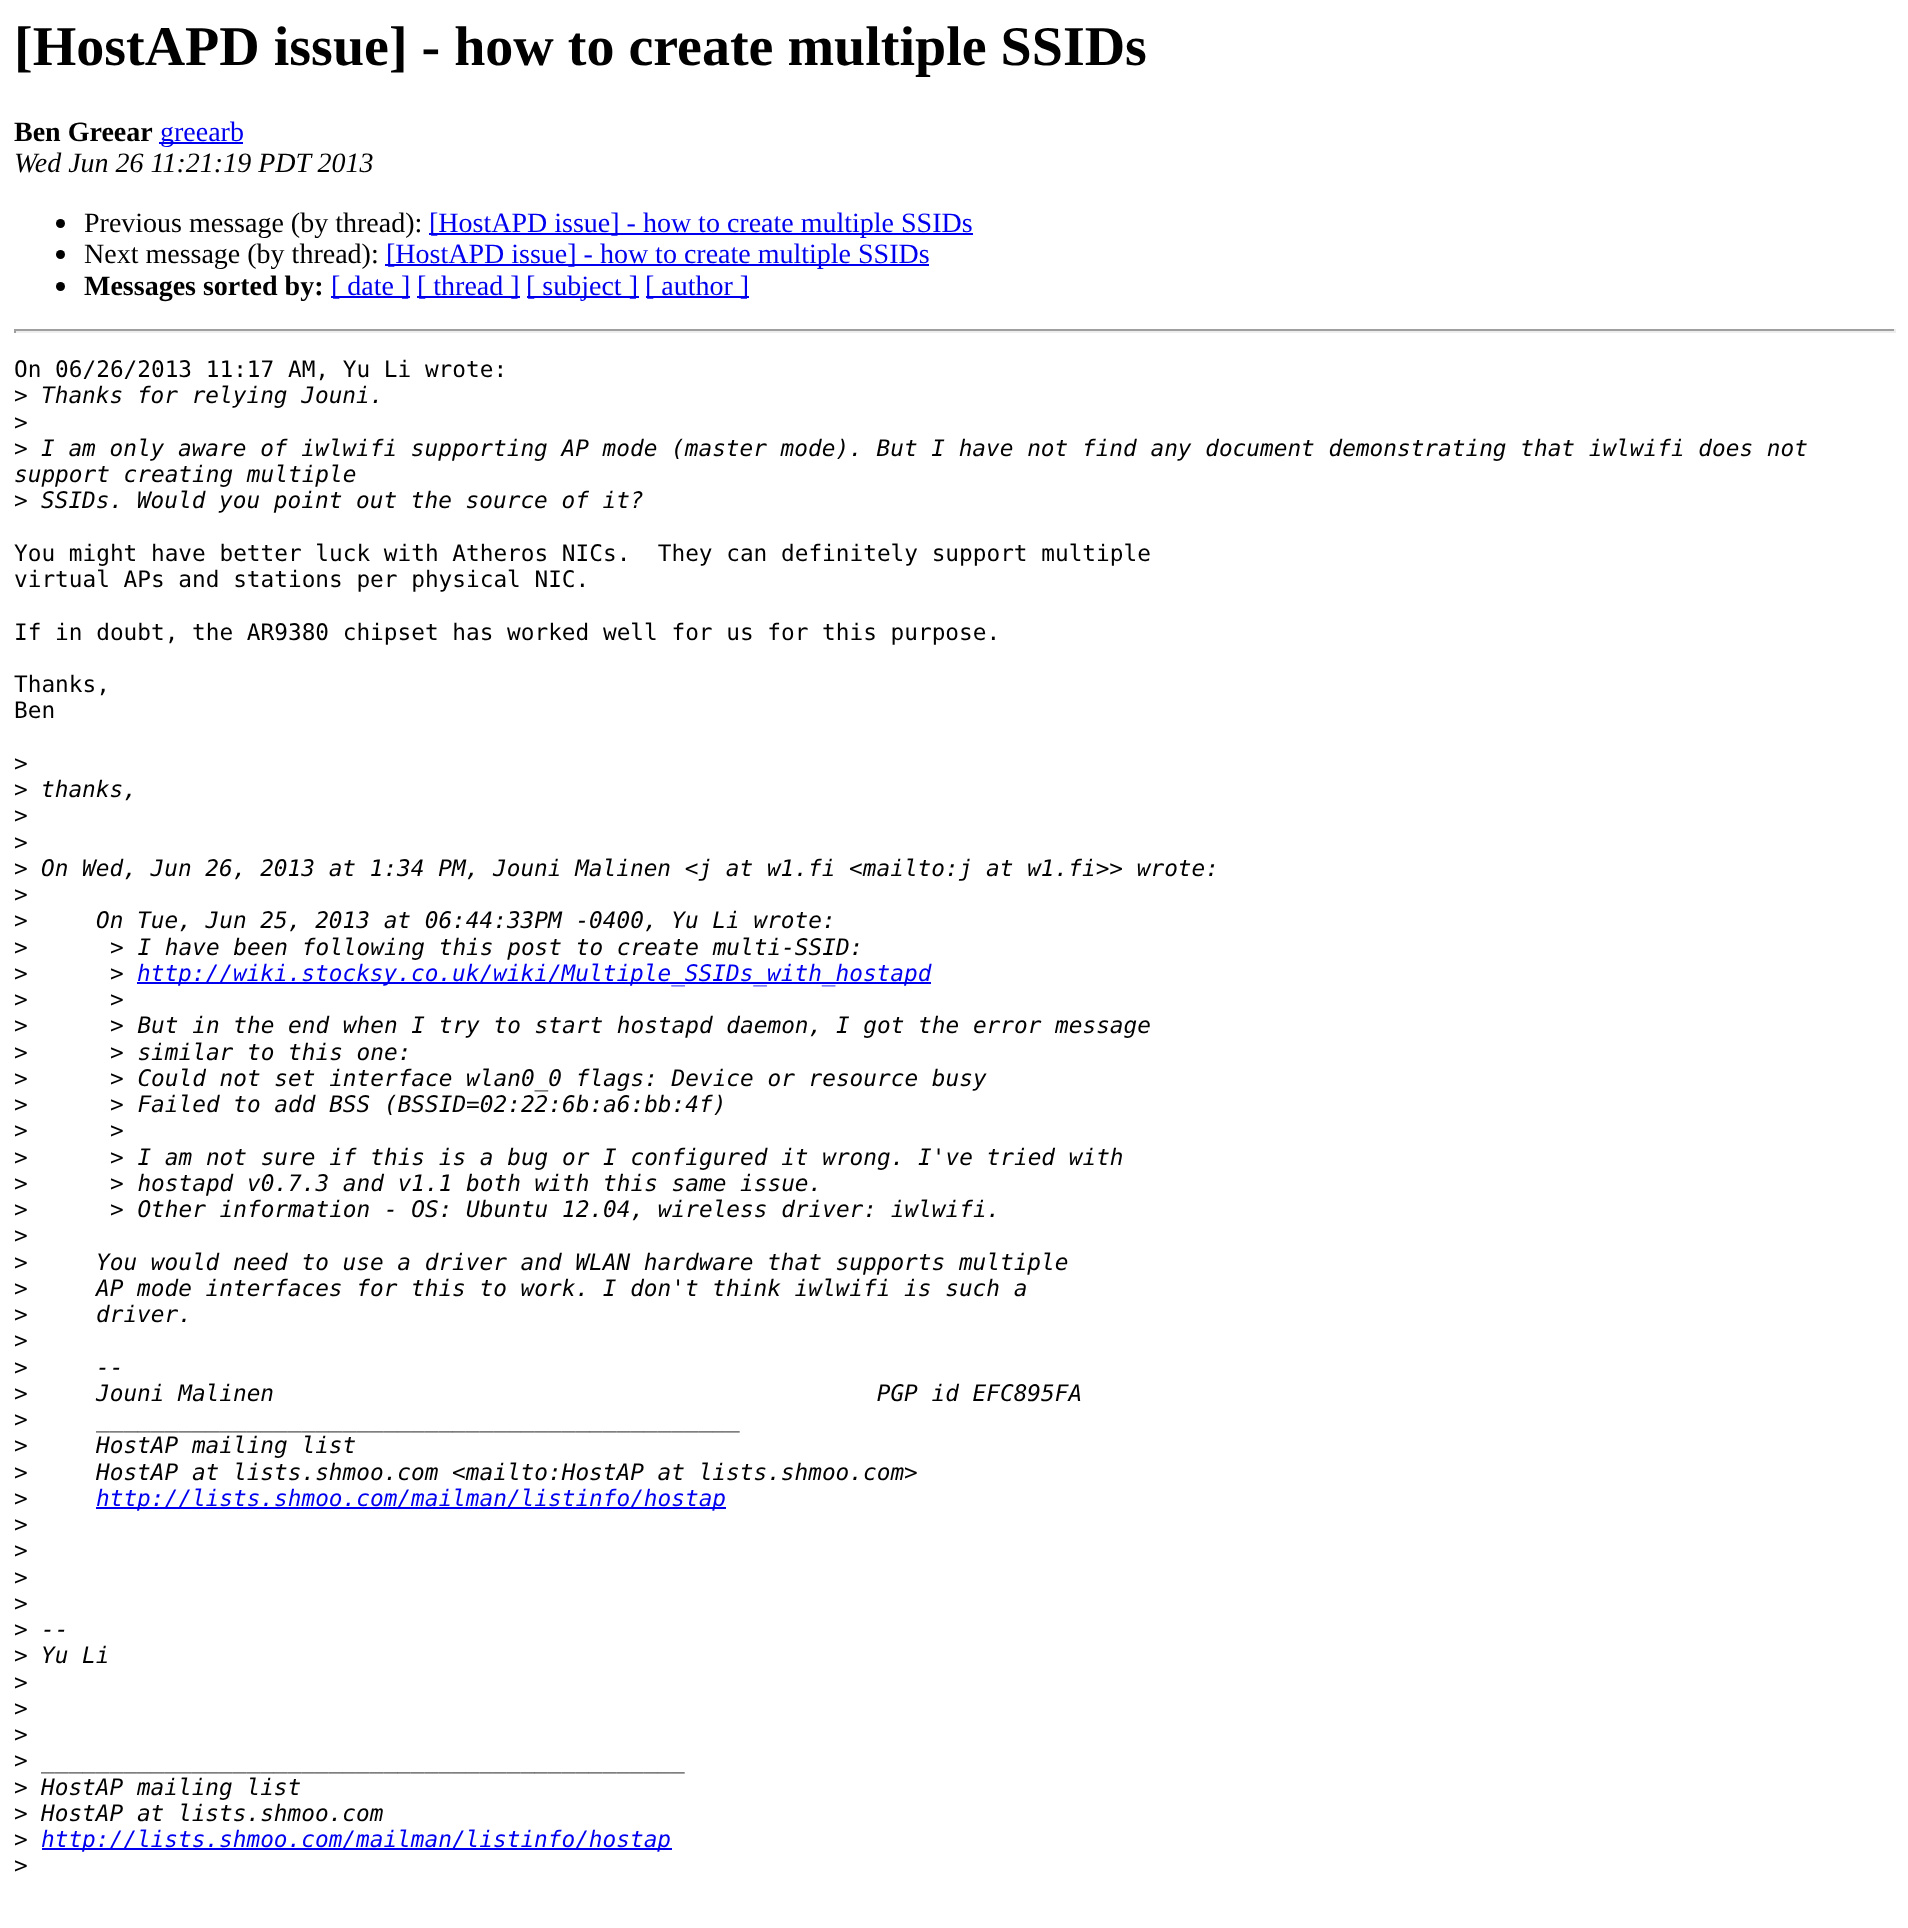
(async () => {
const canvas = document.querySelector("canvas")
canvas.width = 1908
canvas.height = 1928
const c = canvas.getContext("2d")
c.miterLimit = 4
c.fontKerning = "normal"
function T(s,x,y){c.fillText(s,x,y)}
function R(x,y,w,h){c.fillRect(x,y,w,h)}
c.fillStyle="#fff"
R(0,0,1908,1928)
c.font="bold 56px Liberation Serif"
c.fillStyle="#000"
T("[HostAPD issue] - how to create multiple SSIDs",14,65)
c.font="bold 28px Liberation Serif"
T("Ben Greear",14,141)
c.fillStyle="#00e"
R(159,142,84,2)
c.font="28px Liberation Serif"
T("greearb",160,141)
c.font="italic 28px Liberation Serif"
c.fillStyle="#000"
T("Wed Jun 26 11:21:19 PDT 2013",14,172)
c.beginPath()
c.arc(60.5,223.5,4.5,0,7)
c.fill()
c.font="28px Liberation Serif"
T("Previous message (by thread):",84,232)
c.fillStyle="#00e"
R(429,233,544,2)
T("[HostAPD issue] - how to create multiple SSIDs",429,232)
c.fillStyle="#000"
c.beginPath()
c.arc(60.5,254.5,4.5,0,7)
c.fill()
T("Next message (by thread):",84,263)
c.fillStyle="#00e"
R(385,264,544,2)
T("[HostAPD issue] - how to create multiple SSIDs",386,263)
c.fillStyle="#000"
c.beginPath()
c.arc(60.5,286.5,4.5,0,7)
c.fill()
c.font="bold 28px Liberation Serif"
T("Messages sorted by:",84,295)
c.fillStyle="#00e"
R(331,296,79,2)
c.font="28px Liberation Serif"
T("[ date ]",331,295)
R(417,296,103,2)
T("[ thread ]",417,295)
R(527,296,112,2)
T("[ subject ]",526,295)
R(646,296,103,2)
T("[ author ]",645,295)
c.fillStyle="#9f9f9f"
R(14,329,1881,2)
c.fillStyle="#eee"
R(1894,329,2,4)
R(14,331,1881,2)
c.fillStyle="#9f9f9f"
R(14,329,2,4)
c.font="22.75px DejaVu Sans Mono"
c.fillStyle="#000"
T("On 06/26/2013 11:17 AM, Yu Li wrote:",14,377)
T(">",14,403)
c.font="italic 22.75px DejaVu Sans Mono"
T("Thanks for relying Jouni.",41,403)
c.font="22.75px DejaVu Sans Mono"
T(">",14,430)
T(">",14,456)
c.font="italic 22.75px DejaVu Sans Mono"
T("I am only aware of iwlwifi supporting AP mode (master mode). But I have not find any document demonstrating that iwlwifi does not",41,456)
T("support creating multiple",14,482)
c.font="22.75px DejaVu Sans Mono"
T(">",14,508)
c.font="italic 22.75px DejaVu Sans Mono"
T("SSIDs. Would you point out the source of it?",41,508)
c.font="22.75px DejaVu Sans Mono"
T("You might have better luck with Atheros NICs.  They can definitely support multiple",14,561)
T("virtual APs and stations per physical NIC.",14,587)
T("If in doubt, the AR9380 chipset has worked well for us for this purpose.",14,640)
T("Thanks,",14,692)
T("Ben",14,718)
T(">",14,771)
T(">",14,797)
c.font="italic 22.75px DejaVu Sans Mono"
T("thanks,",41,797)
c.font="22.75px DejaVu Sans Mono"
T(">",14,823)
T(">",14,850)
T(">",14,876)
c.font="italic 22.75px DejaVu Sans Mono"
T("On Wed, Jun 26, 2013 at 1:34 PM, Jouni Malinen <j at w1.fi <mailto:j at w1.fi>> wrote:",41,876)
c.font="22.75px DejaVu Sans Mono"
T(">",14,902)
T(">",14,928)
c.font="italic 22.75px DejaVu Sans Mono"
T("On Tue, Jun 25, 2013 at 06:44:33PM -0400, Yu Li wrote:",96,928)
c.font="22.75px DejaVu Sans Mono"
T(">",14,955)
c.font="italic 22.75px DejaVu Sans Mono"
T("> I have been following this post to create multi-SSID:",110,955)
c.font="22.75px DejaVu Sans Mono"
T(">",14,981)
c.font="italic 22.75px DejaVu Sans Mono"
T(">",110,981)
c.fillStyle="#00e"
R(137,982,794,2)
T("http://wiki.stocksy.co.uk/wiki/Multiple_SSIDs_with_hostapd",137,981)
c.font="22.75px DejaVu Sans Mono"
c.fillStyle="#000"
T(">",14,1007)
c.font="italic 22.75px DejaVu Sans Mono"
T(">",110,1007)
c.font="22.75px DejaVu Sans Mono"
T(">",14,1033)
c.font="italic 22.75px DejaVu Sans Mono"
T("> But in the end when I try to start hostapd daemon, I got the error message",110,1033)
c.font="22.75px DejaVu Sans Mono"
T(">",14,1060)
c.font="italic 22.75px DejaVu Sans Mono"
T("> similar to this one:",110,1060)
c.font="22.75px DejaVu Sans Mono"
T(">",14,1086)
c.font="italic 22.75px DejaVu Sans Mono"
T("> Could not set interface wlan0_0 flags: Device or resource busy",110,1086)
c.font="22.75px DejaVu Sans Mono"
T(">",14,1112)
c.font="italic 22.75px DejaVu Sans Mono"
T("> Failed to add BSS (BSSID=02:22:6b:a6:bb:4f)",110,1112)
c.font="22.75px DejaVu Sans Mono"
T(">",14,1138)
c.font="italic 22.75px DejaVu Sans Mono"
T(">",110,1138)
c.font="22.75px DejaVu Sans Mono"
T(">",14,1165)
c.font="italic 22.75px DejaVu Sans Mono"
T("> I am not sure if this is a bug or I configured it wrong. I've tried with",110,1165)
c.font="22.75px DejaVu Sans Mono"
T(">",14,1191)
c.font="italic 22.75px DejaVu Sans Mono"
T("> hostapd v0.7.3 and v1.1 both with this same issue.",110,1191)
c.font="22.75px DejaVu Sans Mono"
T(">",14,1217)
c.font="italic 22.75px DejaVu Sans Mono"
T("> Other information - OS: Ubuntu 12.04, wireless driver: iwlwifi.",110,1217)
c.font="22.75px DejaVu Sans Mono"
T(">",14,1243)
T(">",14,1270)
c.font="italic 22.75px DejaVu Sans Mono"
T("You would need to use a driver and WLAN hardware that supports multiple",96,1270)
c.font="22.75px DejaVu Sans Mono"
T(">",14,1296)
c.font="italic 22.75px DejaVu Sans Mono"
T("AP mode interfaces for this to work. I don't think iwlwifi is such a",96,1296)
c.font="22.75px DejaVu Sans Mono"
T(">",14,1322)
c.font="italic 22.75px DejaVu Sans Mono"
T("driver.",96,1322)
c.font="22.75px DejaVu Sans Mono"
T(">",14,1348)
T(">",14,1375)
c.font="italic 22.75px DejaVu Sans Mono"
T("--",96,1375)
c.font="22.75px DejaVu Sans Mono"
T(">",14,1401)
c.font="italic 22.75px DejaVu Sans Mono"
T("Jouni Malinen                                            PGP id EFC895FA",96,1401)
c.font="22.75px DejaVu Sans Mono"
T(">",14,1427)
c.font="italic 22.75px DejaVu Sans Mono"
T("_______________________________________________",96,1427)
c.font="22.75px DejaVu Sans Mono"
T(">",14,1453)
c.font="italic 22.75px DejaVu Sans Mono"
T("HostAP mailing list",96,1453)
c.font="22.75px DejaVu Sans Mono"
T(">",14,1480)
c.font="italic 22.75px DejaVu Sans Mono"
T("HostAP at lists.shmoo.com <mailto:HostAP at lists.shmoo.com>",96,1480)
c.font="22.75px DejaVu Sans Mono"
T(">",14,1506)
c.fillStyle="#00e"
R(96,1507,630,2)
c.font="italic 22.75px DejaVu Sans Mono"
T("http://lists.shmoo.com/mailman/listinfo/hostap",96,1506)
c.font="22.75px DejaVu Sans Mono"
c.fillStyle="#000"
T(">",14,1532)
T(">",14,1558)
T(">",14,1585)
T(">",14,1611)
T(">",14,1637)
c.font="italic 22.75px DejaVu Sans Mono"
T("--",41,1637)
c.font="22.75px DejaVu Sans Mono"
T(">",14,1663)
c.font="italic 22.75px DejaVu Sans Mono"
T("Yu Li",41,1663)
c.font="22.75px DejaVu Sans Mono"
T(">",14,1690)
T(">",14,1716)
T(">",14,1742)
T(">",14,1768)
c.font="italic 22.75px DejaVu Sans Mono"
T("_______________________________________________",41,1768)
c.font="22.75px DejaVu Sans Mono"
T(">",14,1795)
c.font="italic 22.75px DejaVu Sans Mono"
T("HostAP mailing list",41,1795)
c.font="22.75px DejaVu Sans Mono"
T(">",14,1821)
c.font="italic 22.75px DejaVu Sans Mono"
T("HostAP at lists.shmoo.com",41,1821)
c.font="22.75px DejaVu Sans Mono"
T(">",14,1847)
c.fillStyle="#00e"
R(42,1848,630,2)
c.font="italic 22.75px DejaVu Sans Mono"
T("http://lists.shmoo.com/mailman/listinfo/hostap",41,1847)
c.font="22.75px DejaVu Sans Mono"
c.fillStyle="#000"
T(">",14,1873)
})()
